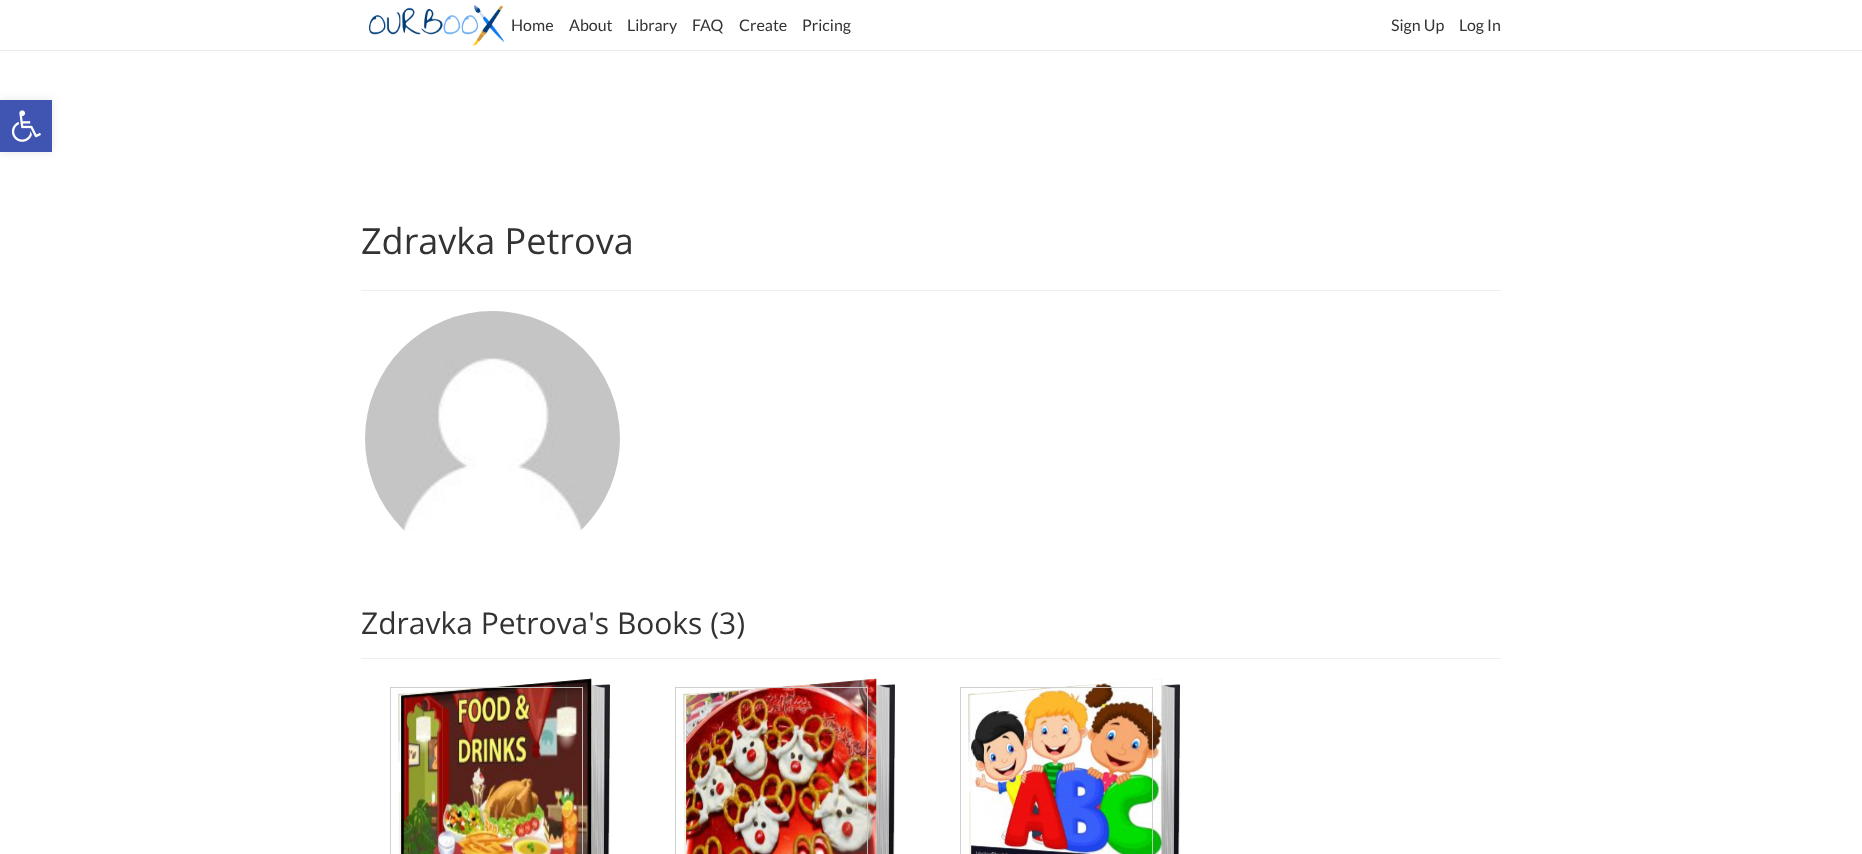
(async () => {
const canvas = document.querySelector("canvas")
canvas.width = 1862
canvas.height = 854
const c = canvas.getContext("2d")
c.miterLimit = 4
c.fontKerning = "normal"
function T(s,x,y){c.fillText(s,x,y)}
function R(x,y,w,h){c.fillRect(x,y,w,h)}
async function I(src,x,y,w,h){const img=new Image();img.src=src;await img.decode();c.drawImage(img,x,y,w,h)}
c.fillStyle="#fff"
R(0,0,1862,854)
c.fillStyle="#e7ebed"
R(0,50,1862,1)
await I("1.png",369,5,135,41)
c.font="16px Lato"
c.fillStyle="#333"
T("Home",511,31)
T("About",569,31)
T("Library",627,31)
T("FAQ",692,31)
T("Create",739,31)
T("Pricing",802,31)
T("Sign Up",1391,31)
T("Log In",1459,31)
c.fillStyle="#0000001a"
c.filter="blur(5px)"
c.beginPath()
c.rect(0,100,52,52)
c.fill()
c.filter="none"
c.fillStyle="#4054b2"
R(0,100,52,52)
await I("2.png",11,110,30,32)
c.fillStyle="#eee"
R(361,290,1140,1)
c.font="36px Open Sans"
c.fillStyle="#333"
T("Zdravka Petrova",361,254)
await I("3.png",365,311,255,220)
c.fillStyle="#eee"
R(361,658,1140,1)
c.font="30px Open Sans"
c.fillStyle="#333"
T("Zdravka Petrova's Books (3)",361,634)
await I("5.png",398,679,212,175)
await I("4.png",401,678,191,176)
c.strokeStyle="#ccc"
c.lineWidth=0.9
c.strokeRect(390.45,687.45,192.1,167.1)
await I("7.png",683,679,212,175)
await I("6.png",686,678,191,176)
c.strokeRect(675.45,687.45,192.1,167.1)
await I("9.png",968,679,212,175)
await I("8.png",971,679,191,175)
c.strokeRect(960.45,687.45,192.1,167.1)
})()
